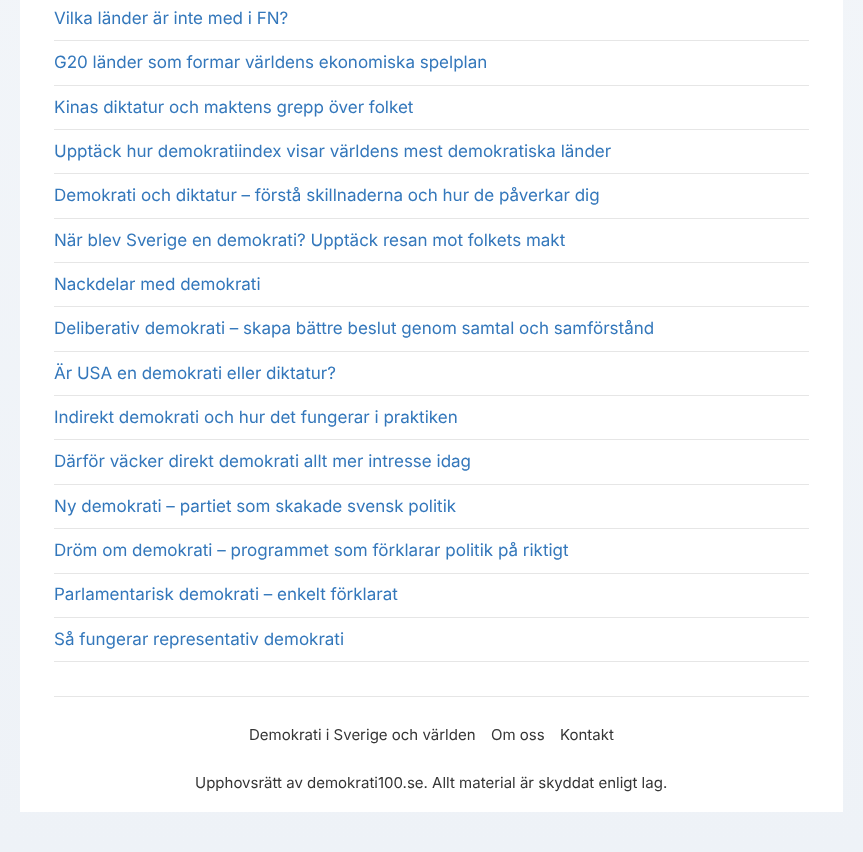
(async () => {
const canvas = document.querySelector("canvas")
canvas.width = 863
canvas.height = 852
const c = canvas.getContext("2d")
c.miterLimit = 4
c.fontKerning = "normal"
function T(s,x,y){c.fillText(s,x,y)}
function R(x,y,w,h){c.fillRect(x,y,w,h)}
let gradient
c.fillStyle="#fff"
R(0,0,863,852)
gradient = c.createLinearGradient(431,-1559,432,852)
gradient.addColorStop(0,"#f8fafc")
gradient.addColorStop(1,"#eef2f7")
c.fillStyle = gradient
R(0,0,863,852)
c.fillStyle="#fff"
R(20,0,823,812)
c.font="17px Inter"
c.fillStyle="#37b"
T("Vilka länder är inte med i FN?",54,24)
c.fillStyle="#e6e6e6"
R(54,40,755,1)
c.fillStyle="#37b"
T("G20 länder som formar världens ekonomiska spelplan",54,68)
c.fillStyle="#e6e6e6"
R(54,85,755,1)
c.fillStyle="#37b"
T("Kinas diktatur och maktens grepp över folket",54,113)
c.fillStyle="#e6e6e6"
R(54,129,755,1)
c.fillStyle="#37b"
T("Upptäck hur demokratiindex visar världens mest demokratiska länder",54,157)
c.fillStyle="#e6e6e6"
R(54,173,755,1)
c.fillStyle="#37b"
T("Demokrati och diktatur – förstå skillnaderna och hur de påverkar dig",54,201)
c.fillStyle="#e6e6e6"
R(54,218,755,1)
c.fillStyle="#37b"
T("När blev Sverige en demokrati? Upptäck resan mot folkets makt",54,246)
c.fillStyle="#e6e6e6"
R(54,262,755,1)
c.fillStyle="#37b"
T("Nackdelar med demokrati",54,290)
c.fillStyle="#e6e6e6"
R(54,306,755,1)
c.fillStyle="#37b"
T("Deliberativ demokrati – skapa bättre beslut genom samtal och samförstånd",54,334)
c.fillStyle="#e6e6e6"
R(54,351,755,1)
c.fillStyle="#37b"
T("Är USA en demokrati eller diktatur?",54,379)
c.fillStyle="#e6e6e6"
R(54,395,755,1)
c.fillStyle="#37b"
T("Indirekt demokrati och hur det fungerar i praktiken",54,423)
c.fillStyle="#e6e6e6"
R(54,439,755,1)
c.fillStyle="#37b"
T("Därför väcker direkt demokrati allt mer intresse idag",54,467)
c.fillStyle="#e6e6e6"
R(54,484,755,1)
c.fillStyle="#37b"
T("Ny demokrati – partiet som skakade svensk politik",54,512)
c.fillStyle="#e6e6e6"
R(54,528,755,1)
c.fillStyle="#37b"
T("Dröm om demokrati – programmet som förklarar politik på riktigt",54,556)
c.fillStyle="#e6e6e6"
R(54,573,755,1)
c.fillStyle="#37b"
T("Parlamentarisk demokrati – enkelt förklarat",54,600)
c.fillStyle="#e6e6e6"
R(54,617,755,1)
R(54,661,755,1)
c.fillStyle="#37b"
T("Så fungerar representativ demokrati",54,645)
c.fillStyle="#e6e6e6"
R(54,696,755,1)
c.font="15px Inter"
c.fillStyle="#353535"
T("Demokrati i Sverige och världen",249,740)
T("Om oss",491,740)
T("Kontakt",560,740)
T("Upphovsrätt av demokrati100.se. Allt material är skyddat enligt lag.",195,788)
})()
